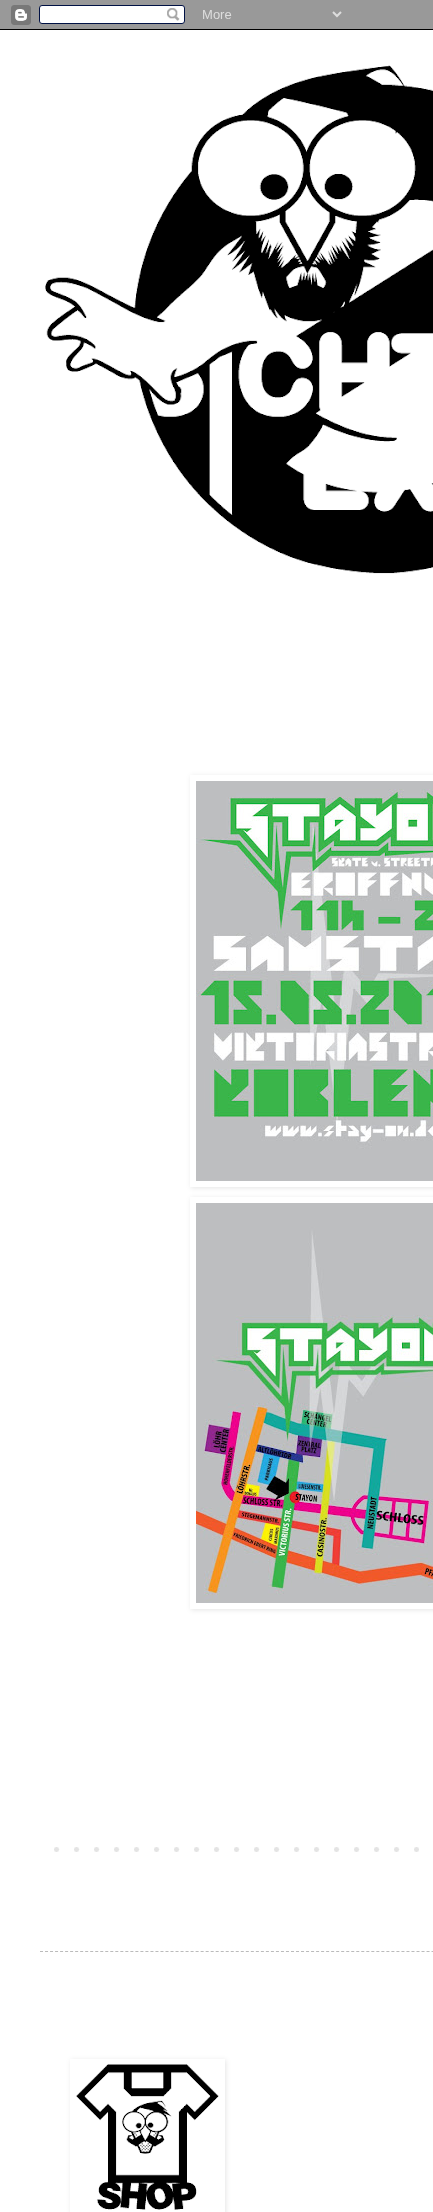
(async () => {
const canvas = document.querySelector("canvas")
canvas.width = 433
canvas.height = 2212
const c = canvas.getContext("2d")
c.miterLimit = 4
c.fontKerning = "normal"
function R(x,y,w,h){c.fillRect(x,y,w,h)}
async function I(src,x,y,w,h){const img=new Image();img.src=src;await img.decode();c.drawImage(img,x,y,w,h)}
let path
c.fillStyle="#fff"
R(0,0,433,2212)
await I("1.png",0,0,433,30)
await I("2.png",45,65,388,509)
c.save()
path = new Path2D("M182 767h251v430h-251zm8 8h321v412h-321z")
c.clip(path,"evenodd")
c.fillStyle="#0000001a"
c.filter="blur(2.5px)"
c.beginPath()
c.rect(191,776,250,412)
c.fill()
c.filter="none"
c.restore()
await I("3.png",196,781,237,400)
c.save()
path = new Path2D("M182 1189h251v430h-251zm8 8h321v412h-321z")
c.clip(path,"evenodd")
c.fillStyle="#0000001a"
c.filter="blur(2.5px)"
c.beginPath()
c.rect(191,1198,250,412)
c.fill()
c.filter="none"
c.restore()
await I("4.png",196,1203,237,400)
await I("5.png",54,1847,365,5)
path = new Path2D("M40 1951.5h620")
c.strokeStyle="#bbb"
c.setLineDash([3,2.02])
c.stroke(path)
c.save()
path = new Path2D("M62 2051h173v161h-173zm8 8h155v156h-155z")
c.clip(path,"evenodd")
c.fillStyle="#0000001a"
c.filter="blur(2.5px)"
c.beginPath()
c.rect(71,2060,155,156)
c.fill()
c.filter="none"
c.restore()
await I("6.png",76,2064,143,146)
})()
